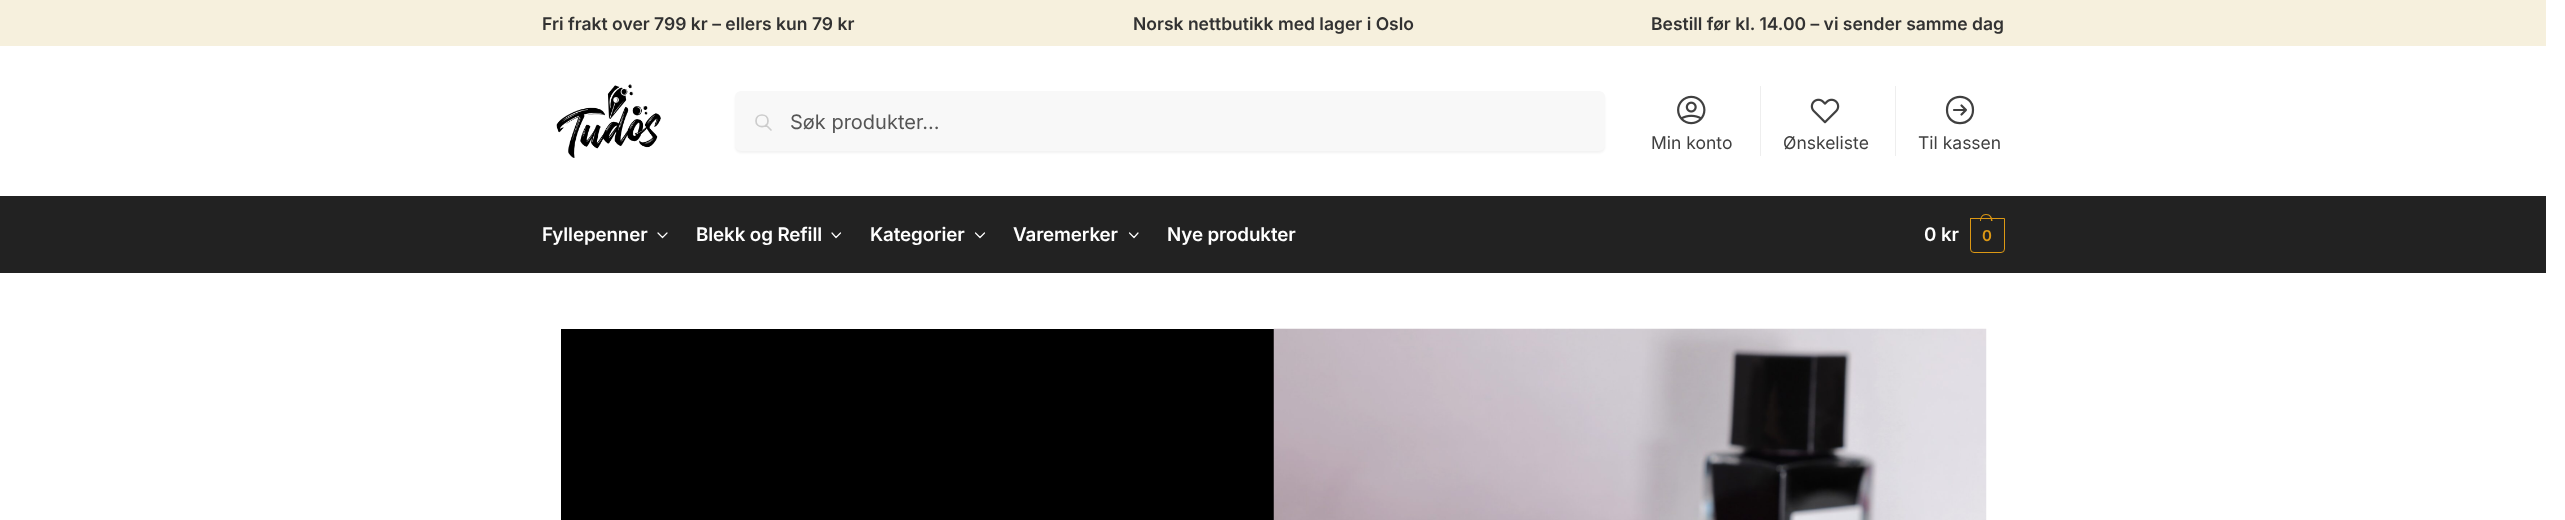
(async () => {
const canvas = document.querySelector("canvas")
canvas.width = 2565
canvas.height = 520
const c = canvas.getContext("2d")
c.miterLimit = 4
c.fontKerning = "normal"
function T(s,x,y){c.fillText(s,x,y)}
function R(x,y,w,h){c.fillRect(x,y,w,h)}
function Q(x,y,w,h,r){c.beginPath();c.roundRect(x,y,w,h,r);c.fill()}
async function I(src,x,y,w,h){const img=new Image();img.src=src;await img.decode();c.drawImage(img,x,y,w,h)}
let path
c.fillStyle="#fff"
R(0,0,2565,520)
c.fillStyle="#f6f0dd"
R(0,0,2546,46)
c.font="600 17.5px Inter"
c.fillStyle="#323232"
T("Fri frakt over 799 kr – ellers kun 79 kr",542,30)
T("Norsk nettbutikk med lager i Oslo",1133,30)
T("Bestill før kl. 14.00 – vi sender samme dag",1651,30)
await I("1.png",556,84,105,74)
c.fillStyle="#0000000d"
c.filter="blur(1px)"
c.beginPath()
c.roundRect(735,93,870,60,6)
c.fill()
c.filter="none"
c.fillStyle="#f8f8f8"
Q(735,91,870,60,6)
path = new Path2D("M771 130l-5-5m2-4c0 7.5-12 7.5-12 0c0-8 12-8 12 0z")
c.strokeStyle="#ccc"
c.lineWidth=1.7
c.lineCap="round"
c.lineJoin="round"
c.stroke(path)
c.font="20px Inter"
c.fillStyle="#555"
T("Søk produkter...",790,129)
await I("2.png",1677,95,29,30)
c.font="17.5px Inter"
c.fillStyle="#404040"
T("Min konto",1651,149)
c.fillStyle="#eee"
R(1760,86,1,70)
await I("3.png",1810,98,30,26)
c.fillStyle="#404040"
T("Ønskeliste",1783,149)
c.fillStyle="#eee"
R(1895,86,1,70)
path = new Path2D("M1961.5 105.5l4.5 4.5m0 0l-4.5 4.5m4.5-4.5h-12m19 0c0 17.5-26 17.5-26 0c0-17.5 26-17.5 26 0z")
c.strokeStyle="#404040"
c.lineWidth=2.2
c.stroke(path)
c.fillStyle="#404040"
T("Til kassen",1918,149)
c.fillStyle="#222"
R(0,196,2546,77)
c.letterSpacing="-0.1px"
c.font="600 18.75px Inter"
c.fillStyle="#fff"
T("Fyllepenner",542,241)
path = new Path2D("M667 233l-4.5 4.5l-4.5-4.5")
c.strokeStyle="#fff"
c.lineWidth=1.2
c.stroke(path)
T("Blekk og Refill",696,241)
path = new Path2D("M840.5 233l-4.5 4.5l-4-4.5")
c.stroke(path)
T("Kategorier",870,241)
path = new Path2D("M984.5 233l-4.5 4.5l-4.5-4.5")
c.stroke(path)
T("Varemerker",1013,241)
path = new Path2D("M1138 233l-4 4.5l-4.5-4.5")
c.stroke(path)
T("Nye produkter",1167,241)
T("0 kr",1924,241)
c.beginPath()
c.roundRect(1970.5,218.5,34,34,[0,0,3.5,3.5])
c.strokeStyle="#dc9814"
c.lineWidth=1
c.lineJoin="miter"
c.stroke()
c.fillStyle="#dc9814"
path = new Path2D("M1986 214c4.5 0 6.5 3.5 6.5 7h-12.5c0-3.5 2-7 6-7zm0 1c4 0 5 3 5 6h-10c0-3 1.5-6 5-6z")
c.fill(path,"evenodd")
c.letterSpacing="-1px"
c.font="600 15px Inter"
T("0",1982,241)
c.fillStyle="#000"
R(561,329,713,191)
await I("4.png",1273,328,714,192)
})()
